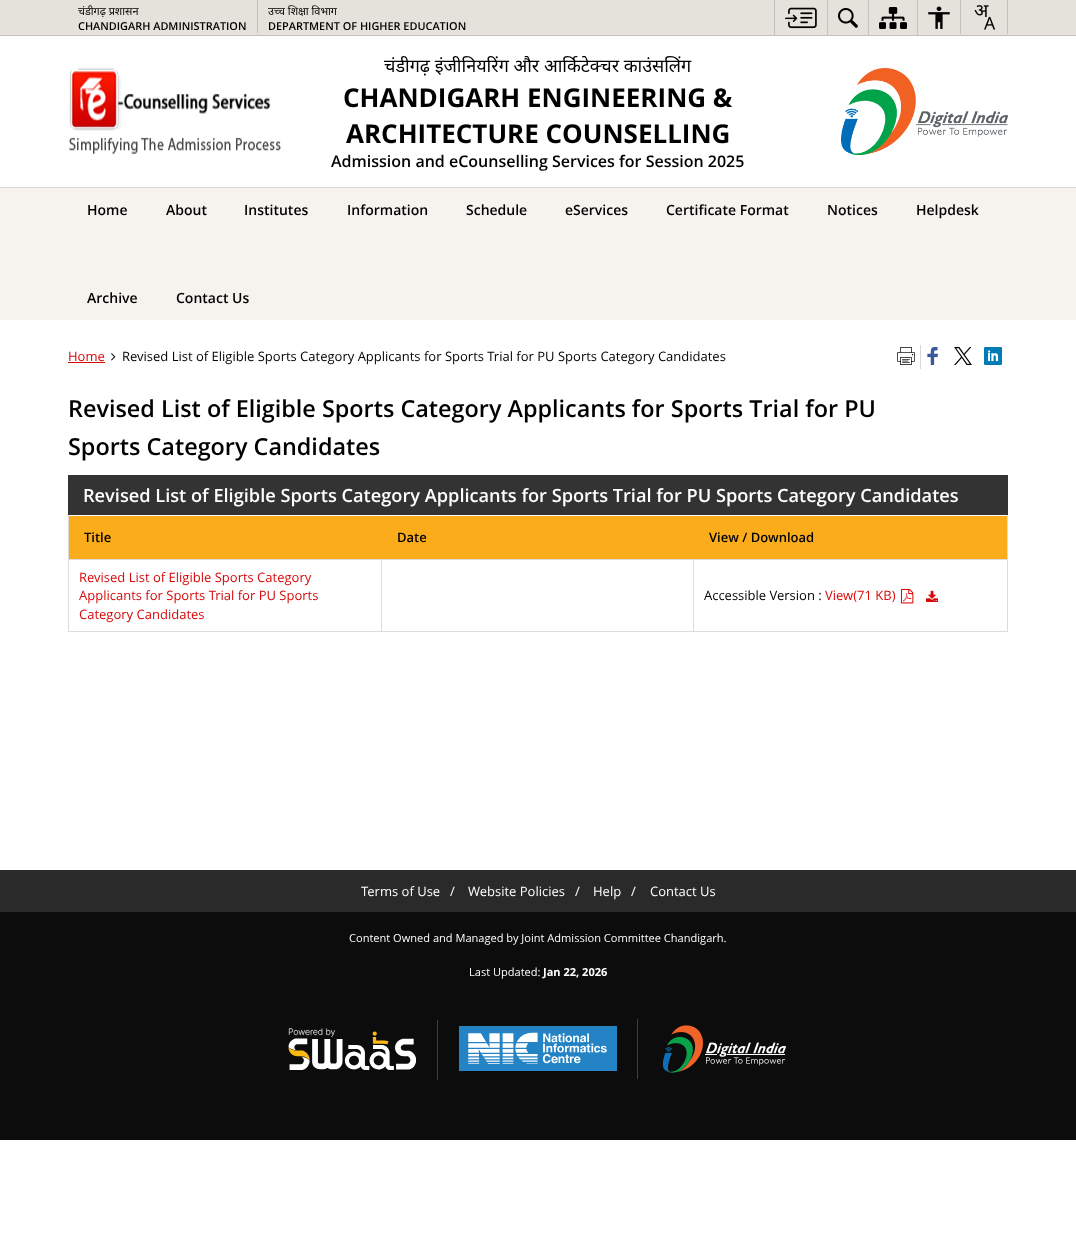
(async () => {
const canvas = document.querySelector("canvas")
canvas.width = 1076
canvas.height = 1253
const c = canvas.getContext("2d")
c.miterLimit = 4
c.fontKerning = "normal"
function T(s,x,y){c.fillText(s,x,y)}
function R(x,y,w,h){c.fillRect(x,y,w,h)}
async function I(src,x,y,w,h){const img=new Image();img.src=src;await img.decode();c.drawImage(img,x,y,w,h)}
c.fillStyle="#fff"
R(0,0,1076,1253)
c.fillStyle="#e5e2db"
R(0,0,1076,35)
c.fillStyle="#c2c0c1"
R(0,35,1076,1)
R(257,0,1,33)
c.font="10.9px Noto Sans"
c.fillStyle="#000"
T("चंडीगढ़ प्रशासन",78,15)
c.font="600 10.9px Open Sans"
T("CHANDIGARH ADMINISTRATION",78,30)
c.font="10.9px Noto Sans"
T("उच्च शिक्षा विभाग",268,15)
c.font="600 10.9px Open Sans"
T("DEPARTMENT OF HIGHER EDUCATION",268,30)
c.fillStyle="#c2c0c1"
R(774,0,1,35)
await I("1.png",785,7,32,22)
R(827,0,1,35)
await I("2.png",838,8,20,20)
R(868,0,1,35)
await I("3.png",879,7,28,22)
R(917,0,1,35)
await I("4.png",928,6,22,23)
R(1007,0,1,34)
R(960,0,1,34)
await I("5.png",974,5,22,25)
await I("6.png",69,68,212,86)
c.font="18px Noto Sans"
c.fillStyle="#000"
T("चंडीगढ़ इंजीनियरिंग और आर्किटेक्चर काउंसलिंग",384,72)
c.font="bold 26px Open Sans"
T("CHANDIGARH ENGINEERING &",343,107)
T("ARCHITECTURE COUNSELLING",346,143)
c.font="600 16px Open Sans"
T("Admission and eCounselling Services for Session 2025",331,167)
await I("7.png",841,68,167,87)
c.fillStyle="#f6f3ee"
R(0,188,1076,132)
c.fillStyle="#d8d8d8"
R(0,187,1076,1)
c.font="600 14px Open Sans"
c.fillStyle="#000"
T("Home",87,215)
T("About",166,215)
T("Institutes",244,215)
T("Information",347,215)
T("Schedule",466,215)
T("eServices",565,215)
T("Certificate Format",666,215)
T("Notices",827,215)
T("Helpdesk",916,215)
T("Archive",87,303)
T("Contact Us",176,303)
c.font="13px Open Sans"
c.fillStyle="#d80808"
T("Home",68,361)
R(68,362,37,1)
await I("8.png",111,353,5,8)
c.fillStyle="#000"
T("Revised List of Eligible Sports Category Applicants for Sports Trial for PU Sports Category Candidates",122,361)
c.fillStyle="#d8d8d8"
R(920,345,1,24)
await I("9.png",897,347,18,18)
await I("10.png",927,347,11,18)
await I("11.png",954,347,18,18)
await I("12.png",984,347,18,18)
c.font="600 23.4px Open Sans"
c.fillStyle="#000"
T("Revised List of Eligible Sports Category Applicants for Sports Trial for PU",68,417)
T("Sports Category Candidates",68,455)
c.strokeStyle="#ddd"
c.strokeRect(68.5,475.5,939,156)
c.fillStyle="#333"
R(68,475,940,40)
c.font="600 18.2px Open Sans"
c.fillStyle="#fff"
T("Revised List of Eligible Sports Category Applicants for Sports Trial for PU Sports Category Candidates",83,502)
c.fillStyle="#fbac1b"
R(69,516,938,43)
c.font="600 13px Open Sans"
c.fillStyle="#000"
T("Title",84,542)
T("Date",397,542)
T("View / Download",709,542)
c.fillStyle="#ddd"
R(69,559,938,1)
R(381,559,1,72)
c.font="13px Open Sans"
c.fillStyle="#d80808"
T("Revised List of Eligible Sports Category",79,582)
T("Applicants for Sports Trial for PU Sports",79,600)
T("Category Candidates",79,619)
c.fillStyle="#ddd"
R(693,559,1,72)
c.fillStyle="#000"
T("Accessible Version :",704,600)
c.fillStyle="#d80808"
T("View(71 KB)",825,600)
await I("13.png",900,588,14,16)
await I("14.png",926,590,13,12)
c.fillStyle="#2a2a2a"
R(0,870,1076,42)
c.fillStyle="#fff"
T("Terms of Use",361,896)
T("/",450,896)
T("Website Policies",468,896)
T("/",575,896)
T("Help",593,896)
T("/",631,896)
T("Contact Us",650,896)
c.fillStyle="#0c0c0c"
R(0,912,1076,228)
c.font="11.05px Open Sans"
c.fillStyle="#fff"
T("Content Owned and Managed by Joint Admission Committee Chandigarh.",349,942)
T("Last Updated:",469,976)
c.font="bold 11.05px Open Sans"
T("Jan 22, 2026",543,976)
await I("15.png",288,1028,129,42)
c.fillStyle="#3f3f3f"
R(437,1020,1,60)
await I("16.png",459,1026,158,45)
R(637,1019,1,60)
await I("17.png",662,1025,125,48)
})()
